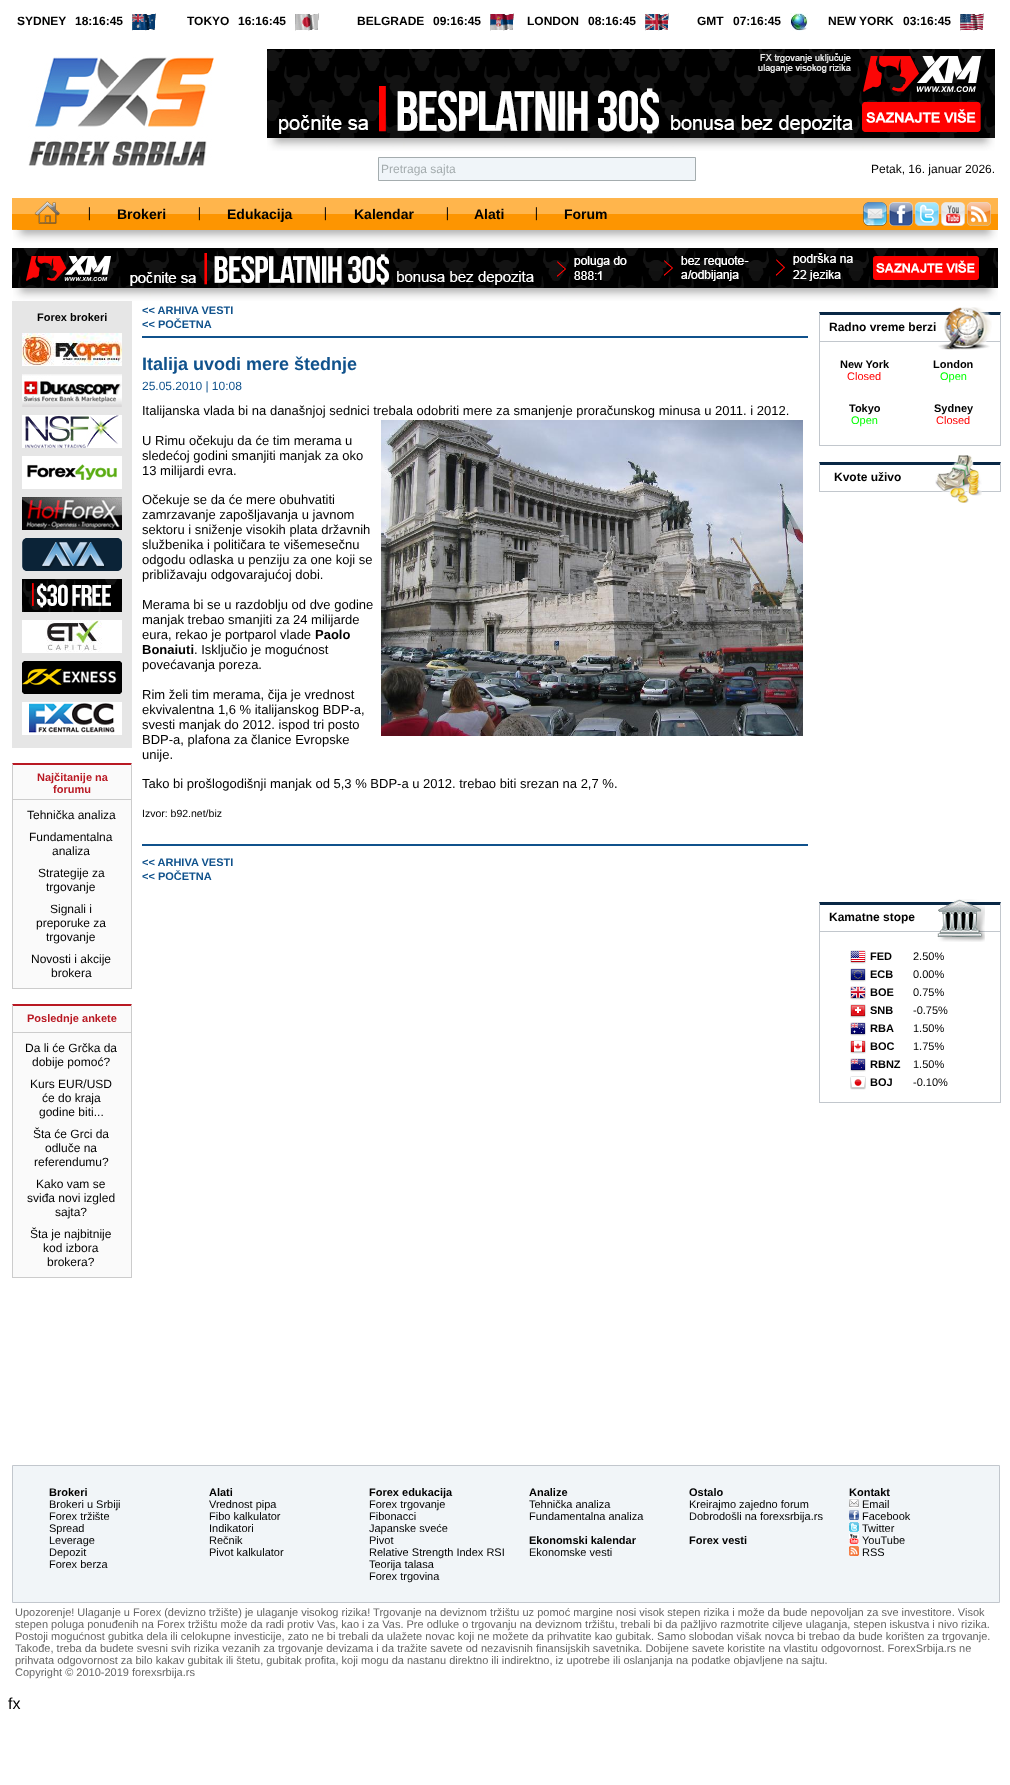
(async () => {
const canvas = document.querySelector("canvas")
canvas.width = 1010
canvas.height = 1785
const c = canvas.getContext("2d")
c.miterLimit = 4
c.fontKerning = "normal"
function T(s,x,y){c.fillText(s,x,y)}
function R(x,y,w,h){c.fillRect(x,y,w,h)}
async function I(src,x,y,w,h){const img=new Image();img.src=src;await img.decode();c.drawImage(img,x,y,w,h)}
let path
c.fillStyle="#fff"
R(0,0,1010,1785)
c.font="bold 12px Liberation Sans"
c.fillStyle="#000"
T("SYDNEY",17,25)
T("18:16:45",75,25)
await I("1.png",132,13,24,18)
T("TOKYO",187,25)
T("16:16:45",238,25)
await I("2.png",295,13,24,18)
T("BELGRADE",357,25)
T("09:16:45",433,25)
await I("3.png",490,13,24,18)
T("LONDON",527,25)
T("08:16:45",588,25)
await I("4.png",645,13,24,18)
T("GMT",697,25)
T("07:16:45",733,25)
await I("5.png",790,13,18,18)
T("NEW YORK",828,25)
T("03:16:45",903,25)
await I("6.png",960,13,24,18)
await I("7.png",28,56,186,110)
await I("8.png",267,49,728,89)
await I("9.png",267,138,728,13)
c.fillStyle="#f0f5f9"
c.beginPath()
c.rect(378.5,157.5,317,23)
c.fill()
c.strokeStyle="#a4acae"
c.stroke()
c.font="12px Liberation Sans"
c.fillStyle="#a4acae"
T("Pretraga sajta",381,173)
c.fillStyle="#000"
T("Petak, 16. januar 2026.",871,173)
await I("10.png",12,198,986,45)
await I("11.png",34,201,26,23)
await I("12.png",88,207,2,14)
c.font="bold 14px Liberation Sans"
T("Brokeri",117,219)
await I("12.png",198,207,2,14)
T("Edukacija",227,219)
await I("12.png",324,207,2,14)
T("Kalendar",354,219)
await I("12.png",446,207,2,14)
T("Alati",474,219)
await I("12.png",535,207,2,14)
T("Forum",564,219)
await I("13.png",863,202,24,24)
await I("14.png",889,202,24,24)
await I("15.png",915,202,24,24)
await I("16.png",941,202,24,24)
await I("17.png",967,202,24,24)
await I("18.png",13,288,985,13)
await I("19.png",12,248,986,40)
c.fillStyle="#e6e6e6"
R(12,301,120,447)
c.font="bold 11px Liberation Sans"
c.fillStyle="#000"
T("Forex brokeri",37,321)
await I("20.png",22,333,100,33)
await I("21.png",22,374,100,33)
await I("22.png",22,415,100,33)
await I("23.png",22,456,100,33)
await I("24.png",22,497,100,33)
await I("25.png",22,538,100,33)
await I("26.png",22,579,100,33)
await I("27.png",22,620,100,33)
await I("28.png",22,661,100,33)
await I("29.png",22,702,100,33)
c.fillStyle="#fafafa"
R(13,765,118,223)
c.fillStyle="#b91923"
path = new Path2D("M12 763h120l-1 2h-118z")
c.fill(path)
c.fillStyle="#ccc"
path = new Path2D("M132 763v226l-1-1v-223z")
c.fill(path)
R(12,988,120,1)
path = new Path2D("M12 989v-226l1 2v223z")
c.fill(path)
R(13,799,118,1)
c.fillStyle="#b91923"
T("Najčitanije na",37,781)
T("forumu",53,793)
c.font="12px Liberation Sans"
c.fillStyle="#000"
T("Tehnička analiza",27,819)
T("Fundamentalna",29,841)
T("analiza",52,855)
T("Strategije za",38,877)
T("trgovanje",46,891)
T("Signali i",50,913)
T("preporuke za",36,927)
T("trgovanje",46,941)
T("Novosti i akcije",31,963)
T("brokera",51,977)
c.fillStyle="#fafafa"
R(13,1006,118,271)
c.fillStyle="#b91923"
path = new Path2D("M12 1004h120l-1 2h-118z")
c.fill(path)
c.fillStyle="#ccc"
path = new Path2D("M132 1004v274l-1-1v-271z")
c.fill(path)
R(12,1277,120,1)
path = new Path2D("M12 1278v-274l1 2v271z")
c.fill(path)
R(13,1032,118,1)
c.font="bold 11px Liberation Sans"
c.fillStyle="#b91923"
T("Poslednje ankete",27,1022)
c.font="12px Liberation Sans"
c.fillStyle="#000"
T("Da li će Grčka da",25,1052)
T("dobije pomoć?",32,1066)
T("Kurs EUR/USD",30,1088)
T("će do kraja",42,1102)
T("godine biti...",39,1116)
T("Šta će Grci da",33,1138)
T("odluče na",45,1152)
T("referendumu?",34,1166)
T("Kako vam se",36,1188)
T("sviđa novi izgled",27,1202)
T("sajta?",55,1216)
T("Šta je najbitnije",30,1238)
T("kod izbora",43,1252)
T("brokera?",47,1266)
c.font="bold 11px Liberation Sans"
c.fillStyle="#10528c"
T("<< ARHIVA VESTI",142,314)
T("<< POČETNA",142,328)
R(142,336,666,2)
c.font="bold 18px Liberation Sans"
T("Italija uvodi mere štednje",142,370)
c.font="12px Liberation Sans"
T("25.05.2010 | 10:08",142,390)
c.font="13px Liberation Sans"
c.fillStyle="#000"
T("Italijanska vlada bi na današnjoj sednici trebala odobriti mere za smanjenje proračunskog minusa u 2011. i 2012.",142,415)
T("U Rimu očekuju da će tim merama u",142,445)
await I("30.png",381,420,422,316)
T("sledećoj godini smanjiti manjak za oko",142,460)
T("13 milijardi evra.",142,475)
T("Očekuje se da će mere obuhvatiti",142,504)
T("zamrzavanje zapošljavanja u javnom",142,519)
T("sektoru i sniženje visokih plata državnih",142,534)
T("službenika i političara te višemesečnu",142,549)
T("odgodu odlaska u penziju za one koji se",142,564)
T("približavaju odgovarajućoj dobi.",142,579)
T("Merama bi se u razdoblju od dve godine",142,609)
T("manjak trebao smanjiti za 24 milijarde",142,624)
T("eura, rekao je portparol vlade",142,639)
c.font="bold 13px Liberation Sans"
T("Paolo",315,639)
T("Bonaiuti",142,654)
c.font="13px Liberation Sans"
T(". Isključio je mogućnost",194,654)
T("povećavanja poreza.",142,669)
T("Rim želi tim merama, čija je vrednost",142,699)
T("ekvivalentna 1,6 % italijanskog BDP-a,",142,714)
T("svesti manjak do 2012. ispod tri posto",142,729)
T("BDP-a, plafona za članice Evropske",142,744)
T("unije.",142,759)
T("Tako bi prošlogodišnji manjak od 5,3 % BDP-a u 2012. trebao biti srezan na 2,7 %.",142,788)
c.font="10.5px Liberation Sans"
T("Izvor: b92.net/biz",142,817)
c.fillStyle="#10528c"
R(142,844,666,2)
c.font="bold 11px Liberation Sans"
T("<< ARHIVA VESTI",142,866)
T("<< POČETNA",142,880)
c.fillStyle="#092845"
path = new Path2D("M819 312h182l-1 3h-180z")
c.fill(path)
c.fillStyle="#c2c7cd"
path = new Path2D("M1001 312v30l-1-1v-26z")
c.fill(path)
path = new Path2D("M819 342v-30l1 3v26z")
c.fill(path)
c.strokeStyle="#c2c7cd"
c.strokeRect(819.5,341.5,181,104)
await I("31.png",938,307,54,43)
c.font="bold 12px Liberation Sans"
c.fillStyle="#000"
T("Radno vreme berzi",829,331)
c.font="bold 11px Liberation Sans"
T("New York",840,368)
c.font="11px Liberation Sans"
c.fillStyle="#f00"
T("Closed",847,380)
c.font="bold 11px Liberation Sans"
c.fillStyle="#000"
T("London",933,368)
c.font="11px Liberation Sans"
c.fillStyle="#0f0"
T("Open",940,380)
c.font="bold 11px Liberation Sans"
c.fillStyle="#000"
T("Tokyo",849,412)
c.font="11px Liberation Sans"
c.fillStyle="#0f0"
T("Open",851,424)
c.font="bold 11px Liberation Sans"
c.fillStyle="#000"
T("Sydney",934,412)
c.font="11px Liberation Sans"
c.fillStyle="#f00"
T("Closed",936,424)
c.fillStyle="#092845"
path = new Path2D("M819 462h182l-1 3h-180z")
c.fill(path)
c.fillStyle="#c2c7cd"
path = new Path2D("M1001 462v30l-1-1v-26z")
c.fill(path)
R(819,491,182,1)
await I("32.png",935,455,47,48)
path = new Path2D("M819 492v-30l1 3v26z")
c.fill(path)
c.font="bold 12px Liberation Sans"
c.fillStyle="#000"
T("Kvote uživo",834,481)
c.fillStyle="#092845"
path = new Path2D("M819 902h182l-1 3h-180z")
c.fill(path)
c.fillStyle="#c2c7cd"
path = new Path2D("M1001 902v30l-1-1v-26z")
c.fill(path)
path = new Path2D("M819 932v-30l1 3v26z")
c.fill(path)
c.strokeRect(819.5,931.5,181,171)
await I("33.png",937,899,48,43)
c.fillStyle="#000"
T("Kamatne stope",829,921)
await I("34.png",850,950,16,14)
c.font="bold 11px Liberation Sans"
T("FED",870,960)
c.font="11px Liberation Sans"
T("2.50%",913,960)
await I("35.png",850,968,16,14)
c.font="bold 11px Liberation Sans"
T("ECB",870,978)
c.font="11px Liberation Sans"
T("0.00%",913,978)
await I("36.png",850,986,16,14)
c.font="bold 11px Liberation Sans"
T("BOE",870,996)
c.font="11px Liberation Sans"
T("0.75%",913,996)
await I("37.png",850,1004,16,14)
c.font="bold 11px Liberation Sans"
T("SNB",870,1014)
c.font="11px Liberation Sans"
T("-0.75%",913,1014)
await I("38.png",850,1022,16,14)
c.font="bold 11px Liberation Sans"
T("RBA",870,1032)
c.font="11px Liberation Sans"
T("1.50%",913,1032)
await I("39.png",850,1040,16,14)
c.font="bold 11px Liberation Sans"
T("BOC",870,1050)
c.font="11px Liberation Sans"
T("1.75%",913,1050)
await I("40.png",850,1058,16,14)
c.font="bold 11px Liberation Sans"
T("RBNZ",870,1068)
c.font="11px Liberation Sans"
T("1.50%",913,1068)
await I("41.png",850,1076,16,14)
c.font="bold 11px Liberation Sans"
T("BOJ",870,1086)
c.font="11px Liberation Sans"
T("-0.10%",913,1086)
c.fillStyle="#f1f5f8"
c.beginPath()
c.rect(12.5,1465.5,987,137)
c.fill()
c.stroke()
c.font="bold 11px Liberation Sans"
c.fillStyle="#000"
T("Brokeri",49,1496)
c.font="11px Liberation Sans"
T("Brokeri u Srbiji",49,1508)
T("Forex tržište",49,1520)
T("Spread",49,1532)
T("Leverage",49,1544)
T("Depozit",49,1556)
T("Forex berza",49,1568)
c.font="bold 11px Liberation Sans"
T("Alati",209,1496)
c.font="11px Liberation Sans"
T("Vrednost pipa",209,1508)
T("Fibo kalkulator",209,1520)
T("Indikatori",209,1532)
T("Rečnik",209,1544)
T("Pivot kalkulator",209,1556)
c.font="bold 11px Liberation Sans"
T("Forex edukacija",369,1496)
c.font="11px Liberation Sans"
T("Forex trgovanje",369,1508)
T("Fibonacci",369,1520)
T("Japanske sveće",369,1532)
T("Pivot",369,1544)
T("Relative Strength Index RSI",369,1556)
T("Teorija talasa",369,1568)
T("Forex trgovina",369,1580)
c.font="bold 11px Liberation Sans"
T("Analize",529,1496)
c.font="11px Liberation Sans"
T("Tehnička analiza",529,1508)
T("Fundamentalna analiza",529,1520)
c.font="bold 11px Liberation Sans"
T("Ekonomski kalendar",529,1544)
c.font="11px Liberation Sans"
T("Ekonomske vesti",529,1556)
c.font="bold 11px Liberation Sans"
T("Ostalo",689,1496)
c.font="11px Liberation Sans"
T("Kreirajmo zajedno forum",689,1508)
T("Dobrodošli na forexsrbija.rs",689,1520)
c.font="bold 11px Liberation Sans"
T("Forex vesti",689,1544)
T("Kontakt",849,1496)
await I("42.png",849,1498,10,10)
c.font="11px Liberation Sans"
T("Email",862,1508)
await I("43.png",849,1510,10,10)
T("Facebook",862,1520)
await I("44.png",849,1522,10,10)
T("Twitter",862,1532)
await I("45.png",849,1534,10,10)
T("YouTube",862,1544)
await I("46.png",849,1546,10,10)
T("RSS",862,1556)
c.fillStyle="#666"
T("Upozorenje! Ulaganje u Forex (devizno tržište) je ulaganje visokog rizika! Trgovanje na deviznom tržištu uz pomoć margine nosi visok stepen rizika i može da bude nepovoljan za sve investitore. Visok",15,1616)
T("stepen poluga ponuđenih na Forex tržištu može da radi protiv Vas, kao i za Vas. Pre odluke o trgovanju na deviznom tržištu, trebali bi da pažljivo razmotrite ciljeve ulaganja, stepen iskustva i nivo rizika.",15,1628)
T("Postoji mogućnost gubitka dela ili celokupne investicije, zato ne bi trebali da ulažete novac koji ne možete da prihvatite kao gubitak. Samo slobodan višak novca bi trebao da bude korišten za trgovanje.",15,1640)
T("Takođe, treba da budete svesni svih rizika vezanih za trgovanje devizama i da tražite savete od nezavisnih finansijskih savetnika. Dobijene savete koristite na vlastitu odgovornost. ForexSrbija.rs ne",15,1652)
T("prihvata odgovornost za bilo kakav gubitak ili štetu, gubitak profita, koji mogu da nastanu direktno ili indirektno, iz upotrebe ili oslanjanja na podatke objavljene na sajtu.",15,1664)
T("Copyright © 2010-2019 forexsrbija.rs",15,1676)
c.font="16px Liberation Sans"
c.fillStyle="#000"
T("fx",8,1709)
})()
